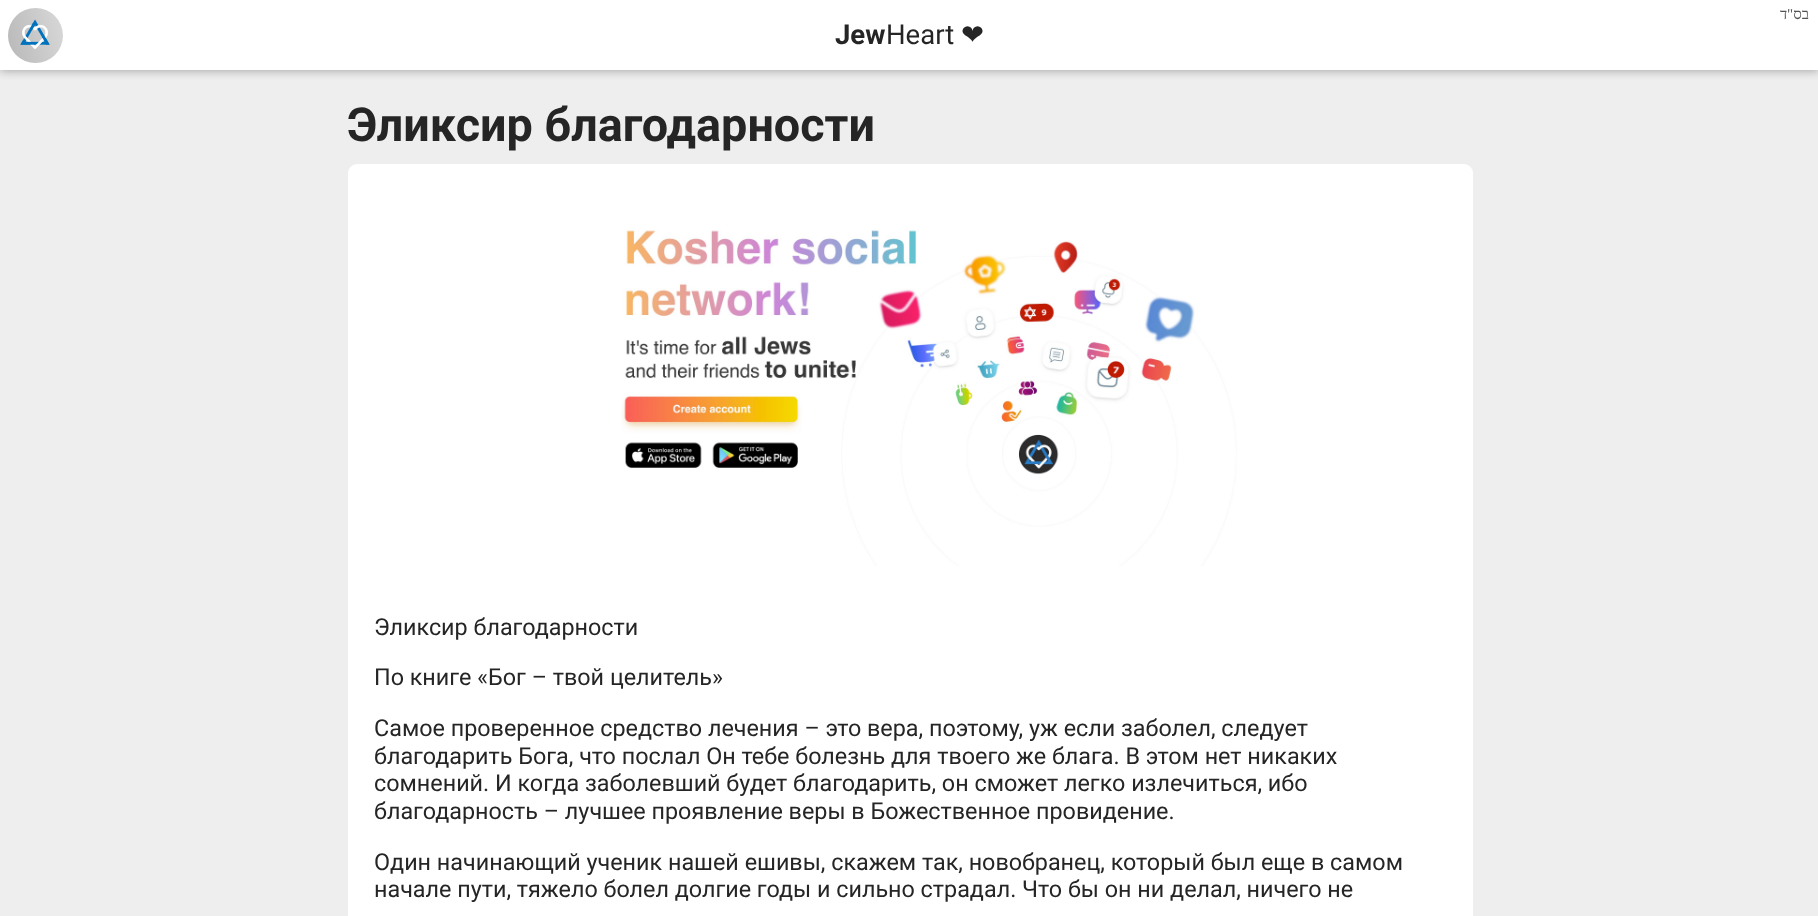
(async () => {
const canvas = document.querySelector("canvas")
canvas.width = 1818
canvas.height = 916
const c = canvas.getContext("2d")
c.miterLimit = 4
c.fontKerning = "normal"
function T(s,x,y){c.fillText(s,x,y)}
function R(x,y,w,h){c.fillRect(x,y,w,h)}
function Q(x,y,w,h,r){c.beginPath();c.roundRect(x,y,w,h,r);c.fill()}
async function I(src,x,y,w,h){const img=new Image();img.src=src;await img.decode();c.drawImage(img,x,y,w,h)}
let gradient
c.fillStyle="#eee"
R(0,0,1818,916)
c.fillStyle="#0000004d"
c.filter="blur(5px)"
c.beginPath()
c.rect(0,1,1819,70)
c.fill()
c.filter="none"
c.fillStyle="#fff"
R(0,0,1818,70)
c.direction="rtl"
c.font="15px Liberation Serif"
c.fillStyle="#525252"
T("בס\"ד",1809,19)
gradient = c.createLinearGradient(2.5,44,68,26)
gradient.addColorStop(0,"#b8b8b8")
gradient.addColorStop(1,"#d9d9d9")
c.fillStyle = gradient
c.beginPath()
c.arc(35.5,35.5,27.5,0,7)
c.fill()
await I("1.png",20,19,30,30)
c.direction="ltr"
c.font="bold 27.5px Roboto"
c.fillStyle="#252525"
T("Jew",835,44)
c.font="27.5px Roboto"
T("Heart",886,44)
c.font="27.5px DejaVu Sans"
T("❤",961,44)
c.font="bold 46.75px Roboto"
T("Эликсир благодарности",347,141)
c.fillStyle="#fff"
Q(348,164,1125,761,9)
await I("2.png",621,230,616,336)
c.font="23.35px Roboto"
c.fillStyle="#252525"
T("Эликсир благодарности",374,635)
T("По книге «Бог – твой целитель»",374,685)
T("Самое проверенное средство лечения – это вера, поэтому, уж если заболел, следует",374,736)
T("благодарить Бога, что послал Он тебе болезнь для твоего же блага. В этом нет никаких",374,764)
T("сомнений. И когда заболевший будет благодарить, он сможет легко излечиться, ибо",374,791)
T("благодарность – лучшее проявление веры в Божественное",374,819)
T("провидение.",1036,819)
T("Один начинающий ученик нашей ешивы, скажем так, новобранец, который был еще в самом",374,870)
T("начале пути, тяжело болел долгие годы и сильно страдал. Что бы он ни делал, ничего не",374,897)
})()
